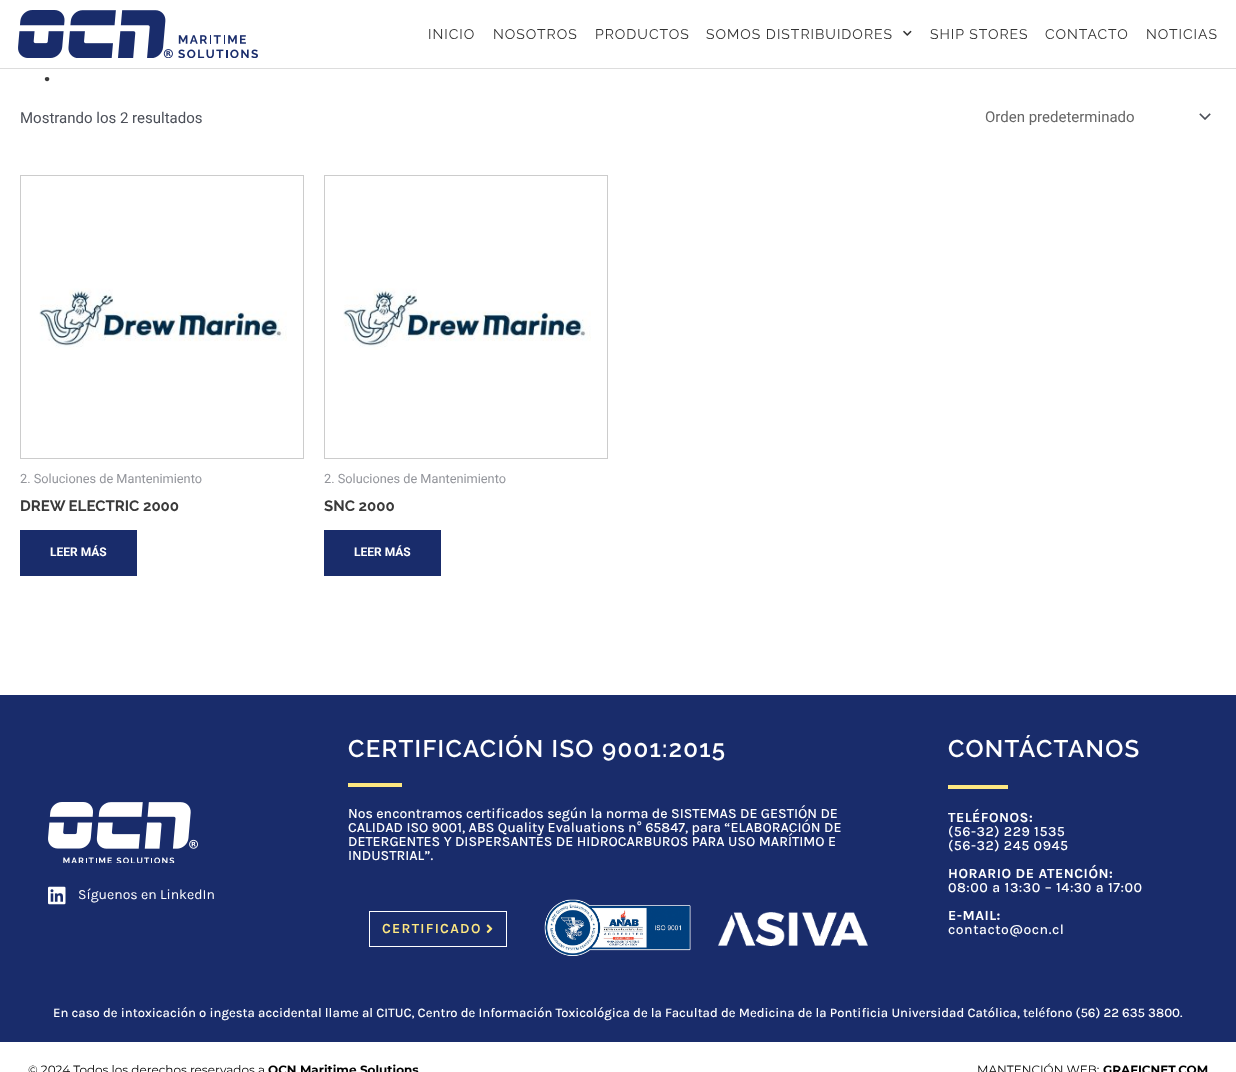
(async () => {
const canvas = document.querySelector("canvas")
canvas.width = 1236
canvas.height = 1072
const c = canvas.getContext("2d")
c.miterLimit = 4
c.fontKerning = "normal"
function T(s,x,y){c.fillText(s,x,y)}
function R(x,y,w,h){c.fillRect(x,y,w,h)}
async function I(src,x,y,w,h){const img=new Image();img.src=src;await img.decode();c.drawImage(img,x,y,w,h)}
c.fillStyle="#fff"
R(0,0,1236,1072)
c.fillStyle="#ddd"
R(0,68,1236,1)
await I("1.png",18,10,240,48)
c.letterSpacing="1px"
c.font="14px Raleway"
c.fillStyle="#333"
T("INICIO",428,39)
T("NOSOTROS",493,39)
T("PRODUCTOS",595,39)
T("SOMOS DISTRIBUIDORES",706,39)
await I("2.png",903,30,9,6)
T("SHIP STORES",930,39)
T("CONTACTO",1045,39)
T("NOTICIAS",1146,39)
c.letterSpacing="0px"
c.font="40px Roboto"
c.fillStyle="#3a3a3a"
T(".",42,81)
c.font="15px Roboto"
c.fillStyle="#4b4f58"
T("Mostrando los 2 resultados",20,123)
await I("3.png",1199,113,12,7)
c.fillStyle="#666"
T("Orden predeterminado",985,122)
c.strokeStyle="#ccc"
c.strokeRect(20.5,175.5,283,283)
await I("4.png",39,288,248,62)
c.font="12.75px Roboto"
c.fillStyle="#93959b"
T("2. Soluciones de Mantenimiento",20,483)
c.font="bold 15px Raleway"
c.fillStyle="#3a3a3a"
T("DREW ELECTRIC 2000",20,511)
c.fillStyle="#192c6b"
R(20,530,117,46)
c.font="bold 12px Roboto"
c.fillStyle="#fff"
T("LEER MÁS",50,556)
c.strokeRect(324.5,175.5,283,283)
await I("5.png",343,288,248,62)
c.font="12.75px Roboto"
c.fillStyle="#93959b"
T("2. Soluciones de Mantenimiento",324,483)
c.font="bold 15px Raleway"
c.fillStyle="#3a3a3a"
T("SNC 2000",324,511)
c.fillStyle="#192c6b"
R(324,530,117,46)
c.font="bold 12px Roboto"
c.fillStyle="#fff"
T("LEER MÁS",354,556)
c.fillStyle="#192c6b"
R(0,695,1236,347)
await I("6.png",48,802,150,61)
await I("7.png",48,886,18,19)
c.font="14px Karla"
c.fillStyle="#fff"
T("Síguenos en LinkedIn",78,899)
c.letterSpacing="1.3px"
c.font="600 24px Raleway"
T("CERTIFICACIÓN ISO 9001:2015",348,757)
c.fillStyle="#fee881"
R(348,783,54,4)
c.letterSpacing="0px"
c.font="500 14px Karla"
c.fillStyle="#fff"
T("Nos encontramos certificados según la norma de SISTEMAS DE GESTIÓN DE",348,818)
T("CALIDAD ISO 9001, ABS Quality Evaluations n° 65847, para “ELABORACIÓN DE",348,832)
T("DETERGENTES Y DISPERSANTES DE HIDROCARBUROS PARA USO MARÍTIMO E",348,846)
T("INDUSTRIAL”.",348,860)
c.strokeStyle="#fff"
c.strokeRect(369.5,911.5,137,35)
c.letterSpacing="1.3px"
c.font="600 14px Karla"
c.fillStyle="#fee881"
T("CERTIFICADO",382,933)
await I("8.png",486,924,7,10)
await I("9.png",544,899,147,57)
await I("10.png",718,912,150,34)
c.font="600 24px Raleway"
c.fillStyle="#fff"
T("CONTÁCTANOS",948,757)
c.fillStyle="#fee881"
R(948,785,60,4)
c.letterSpacing="0.5px"
c.font="bold 14px Karla"
c.fillStyle="#fff"
T("TELÉFONOS:",948,822)
c.font="500 14px Karla"
T("(56-32) 229 1535",948,836)
T("(56-32) 245 0945",948,850)
c.font="bold 14px Karla"
T("HORARIO DE ATENCIÓN:",948,878)
c.font="500 14px Karla"
T("08:00 a 13:30 – 14:30 a 17:00",948,892)
c.font="bold 14px Karla"
T("E-MAIL:",948,920)
c.font="500 14px Karla"
T("contacto@ocn.cl",948,934)
c.letterSpacing="0px"
c.font="500 13px Karla"
T("En caso de intoxicación o ingesta accidental llame al CITUC, Centro de Información Toxicológica de la Facultad de Medicina de la Pontificia Universidad Católica, teléfono (56) 22 635 3800.",53,1017)
c.font="12px Montserrat"
c.fillStyle="#000"
T("© 2024 Todos los derechos reservados a",28,1074)
c.font="bold 12px Montserrat"
T("OCN Maritime Solutions",268,1074)
c.font="12px Montserrat"
T("MANTENCIÓN WEB:",977,1074)
c.font="bold 12px Montserrat"
T("GRAFICNET.COM",1103,1074)
})()
